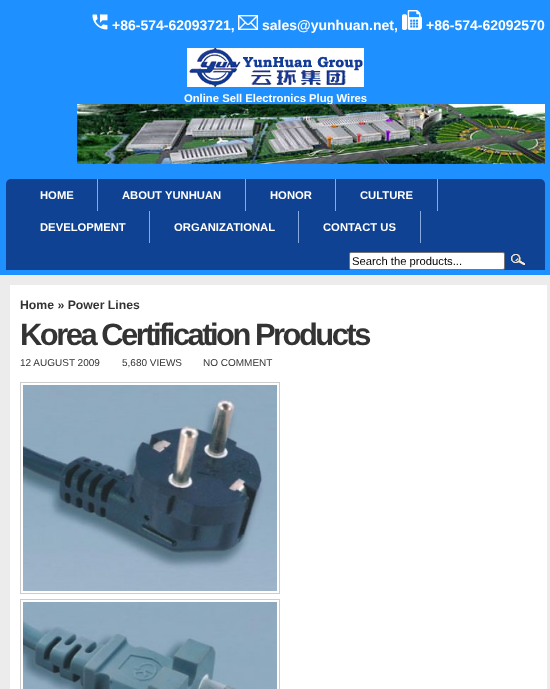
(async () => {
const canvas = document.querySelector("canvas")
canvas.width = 550
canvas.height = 689
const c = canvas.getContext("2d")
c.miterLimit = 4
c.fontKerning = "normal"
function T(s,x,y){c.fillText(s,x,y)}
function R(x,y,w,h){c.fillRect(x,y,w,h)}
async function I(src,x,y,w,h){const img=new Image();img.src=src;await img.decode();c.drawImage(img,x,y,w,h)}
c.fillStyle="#1e90ff"
R(0,0,550,689)
await I("1.png",92,14,16,16)
c.font="bold 14px Liberation Sans"
c.fillStyle="#fff"
T("+86-574-62093721,",112,30)
await I("2.png",238,15,20,15)
T("sales@yunhuan.net,",262,30)
await I("3.png",402,10,20,20)
T("+86-574-62092570",426,30)
await I("4.png",187,48,177,39)
c.font="bold 11.25px Liberation Sans"
T("Online Sell Electronics Plug Wires",184,102)
await I("5.png",77,104,468,60)
c.fillStyle="#0f4292"
c.beginPath()
c.roundRect(6,179,539,91,[5,5,0,0])
c.fill()
c.fillStyle="#88aadf"
R(97,179,1,32)
c.fillStyle="#fff"
T("HOME",40,199)
c.fillStyle="#88aadf"
R(245,179,1,32)
c.fillStyle="#fff"
T("ABOUT YUNHUAN",122,199)
c.fillStyle="#88aadf"
R(335,179,1,32)
c.fillStyle="#fff"
T("HONOR",270,199)
c.fillStyle="#88aadf"
R(437,179,1,32)
c.fillStyle="#fff"
T("CULTURE",360,199)
c.fillStyle="#88aadf"
R(149,211,1,32)
c.fillStyle="#fff"
T("DEVELOPMENT",40,231)
c.fillStyle="#88aadf"
R(298,211,1,32)
c.fillStyle="#fff"
T("ORGANIZATIONAL",174,231)
c.fillStyle="#88aadf"
R(420,211,1,32)
c.fillStyle="#fff"
T("CONTACT US",323,231)
c.beginPath()
c.roundRect(349.5,252.5,155,17,1.5)
c.fill()
c.strokeStyle="#767676"
c.stroke()
c.font="11.25px Liberation Sans"
c.fillStyle="#000"
T("Search the products...",352,265)
await I("6.png",511,254,14,11)
c.fillStyle="#ececec"
R(0,275,550,414)
c.fillStyle="#fff"
R(10,285,537,404)
c.font="bold 12.25px Liberation Sans"
c.fillStyle="#333"
T("Home » Power Lines",20,309)
c.letterSpacing="-2.5px"
c.font="bold 30.9px Liberation Sans"
T("Korea Certification Products",20,345)
c.letterSpacing="0px"
c.font="10px Liberation Sans"
T("12 AUGUST 2009",20,366)
T("5,680 VIEWS",122,366)
T("NO COMMENT",203,366)
c.strokeStyle="#ccc"
c.strokeRect(20.5,382.5,259,211)
await I("7.png",23,385,254,206)
c.strokeRect(20.5,599.5,259,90)
await I("8.png",23,602,254,87)
})()
